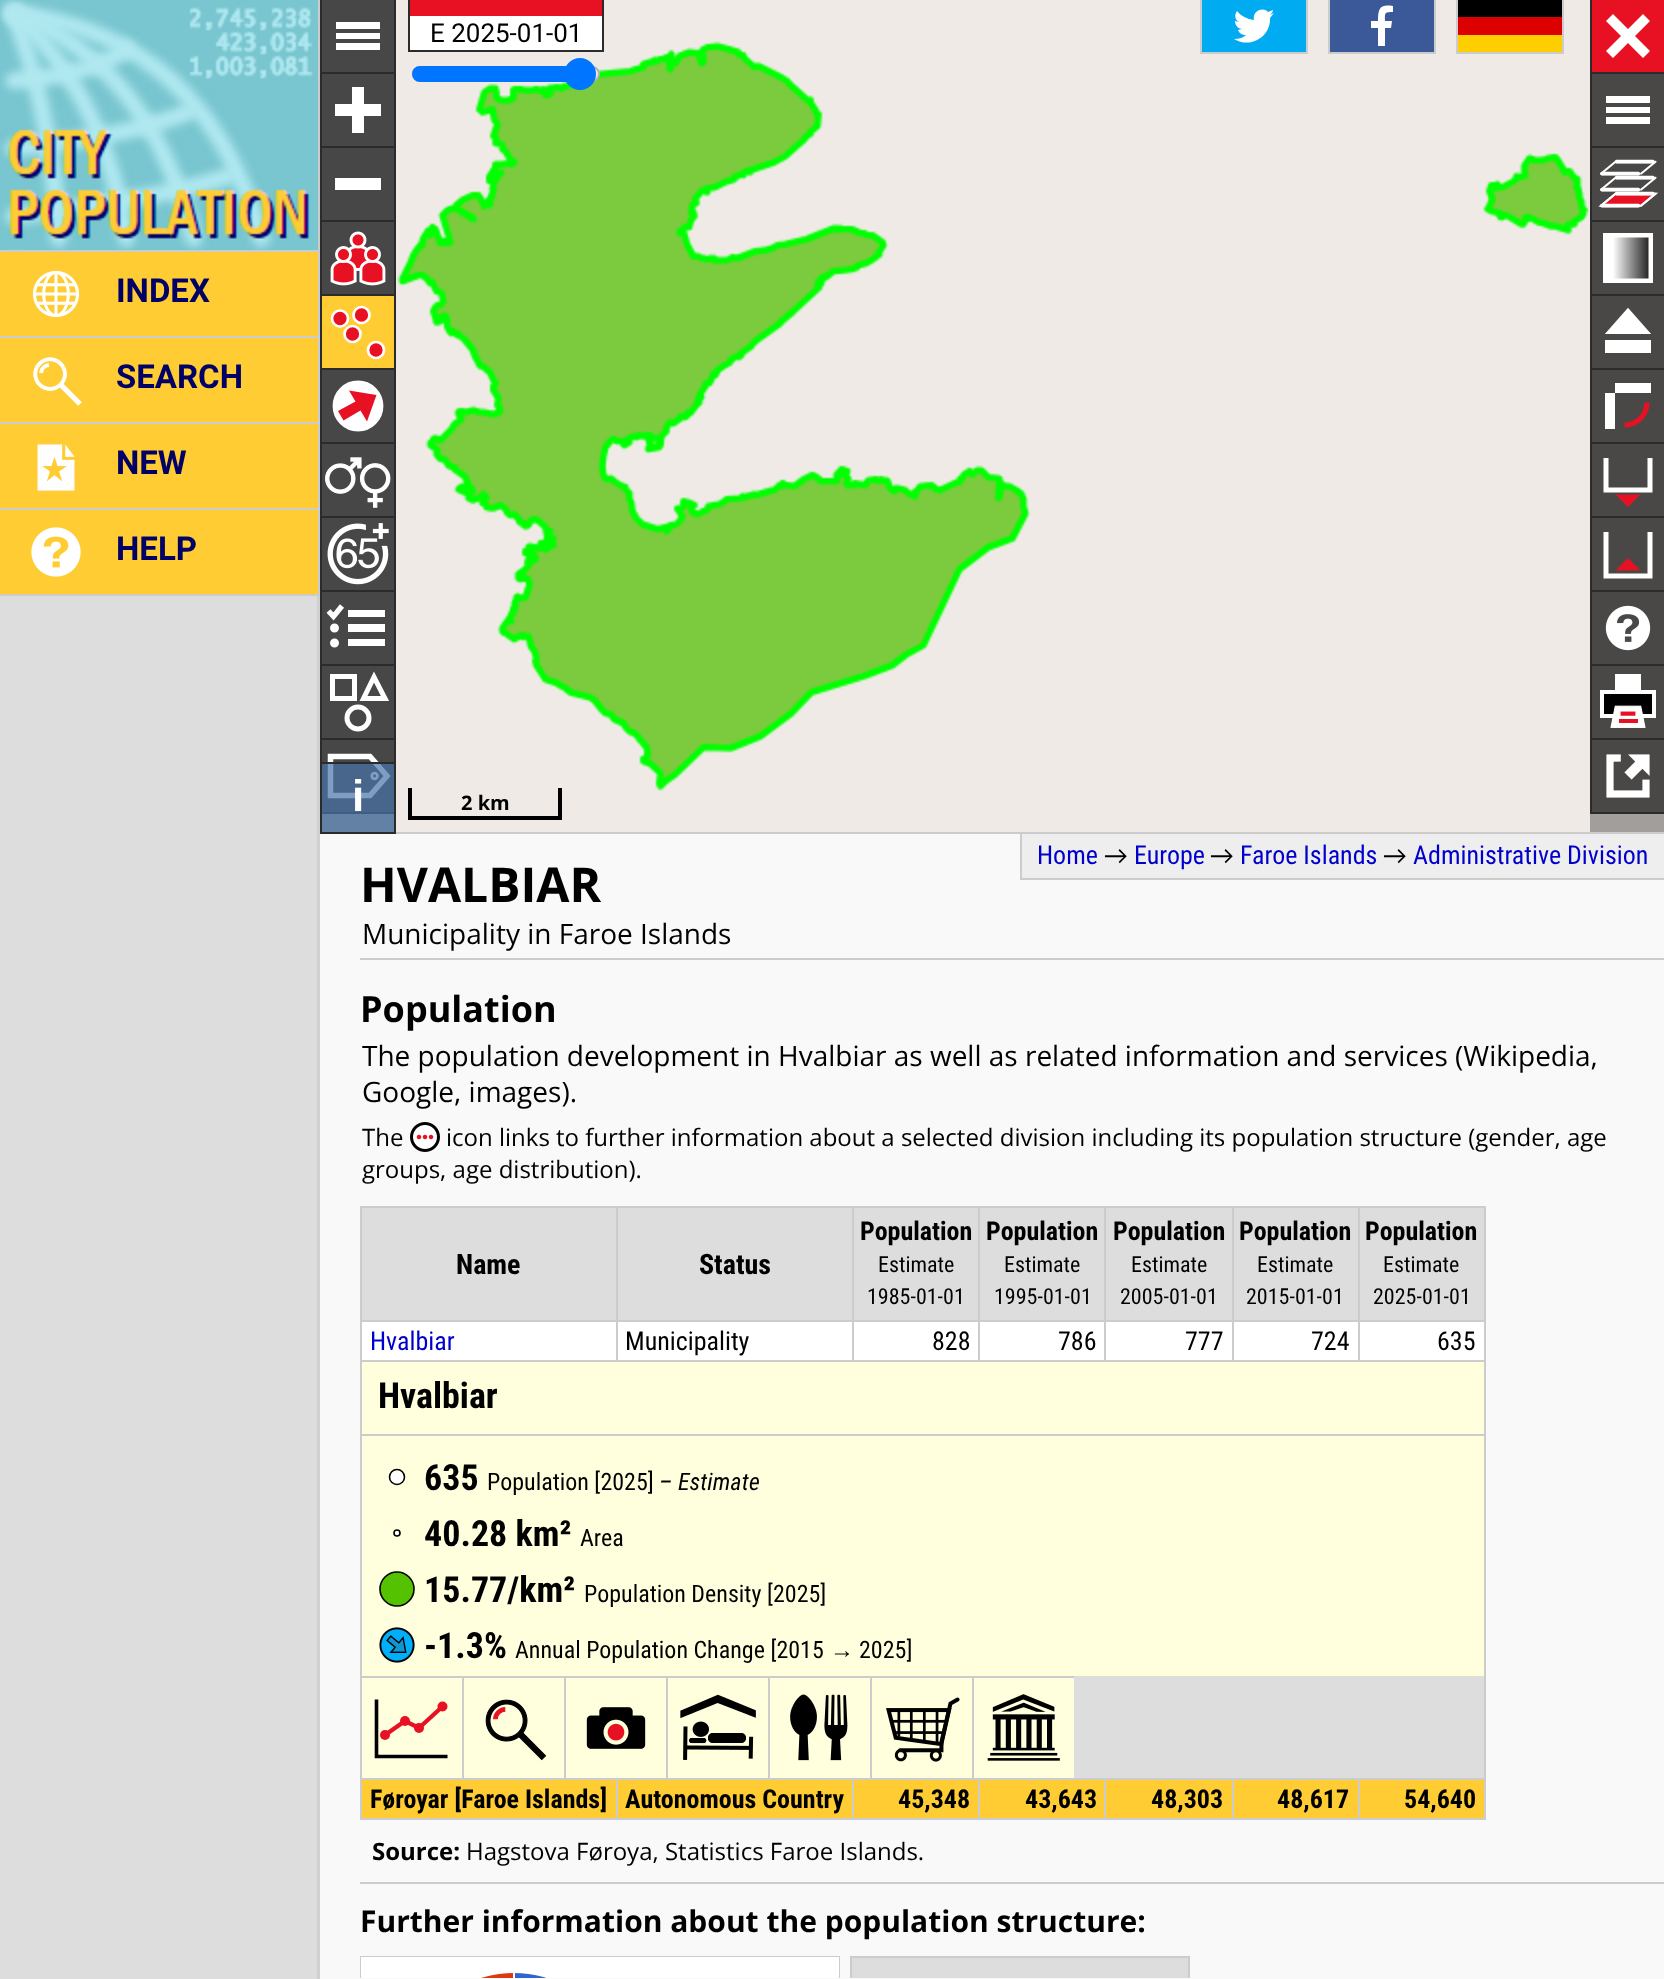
(async () => {
const canvas = document.querySelector("canvas")
canvas.width = 1664
canvas.height = 1979
const c = canvas.getContext("2d")
c.miterLimit = 4
c.fontKerning = "normal"
function T(s,x,y){c.fillText(s,x,y)}
function R(x,y,w,h){c.fillRect(x,y,w,h)}
function Q(x,y,w,h,r){c.beginPath();c.roundRect(x,y,w,h,r);c.fill()}
async function I(src,x,y,w,h){const img=new Image();img.src=src;await img.decode();c.drawImage(img,x,y,w,h)}
let gradient, path
c.fillStyle="#f9f9f9"
R(0,0,1664,1979)
await I("1.png",0,0,318,250)
c.fillStyle="#ccc"
R(318,0,2,596)
R(0,250,320,2)
c.fillStyle="#fc3"
R(0,252,318,84)
c.fillStyle="#ccc"
R(0,336,320,2)
await I("2.png",32,270,48,48)
c.font="bold 33px Roboto"
c.fillStyle="#006"
T("INDEX",116,302)
c.fillStyle="#fc3"
R(0,338,318,84)
c.fillStyle="#ccc"
R(0,422,320,2)
await I("3.png",33,357,49,49)
c.fillStyle="#006"
T("SEARCH",116,388)
c.fillStyle="#fc3"
R(0,424,318,84)
c.fillStyle="#ccc"
R(0,508,320,2)
await I("4.png",37,444,38,47)
c.fillStyle="#006"
T("NEW",116,474)
c.fillStyle="#fc3"
R(0,510,318,84)
c.fillStyle="#ccc"
R(0,594,320,2)
await I("5.png",31,527,50,50)
c.fillStyle="#006"
T("HELP",116,560)
c.fillStyle="#f0eae6"
R(322,0,1268,832)
c.strokeStyle="#ccc"
c.lineWidth=2
c.strokeRect(321,-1,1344,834)
c.fillStyle="#2b2b2b66"
R(322,0,72,832)
c.fillStyle="#2b2b2bbf"
R(322,0,72,72)
c.fillStyle="#2b2b2b"
R(320,72,76,2)
R(320,0,2,72)
c.fillStyle="#fff"
R(336,22,44,7)
c.fillStyle="#2b2b2b"
R(394,0,2,72)
c.fillStyle="#fff"
R(336,33,44,6)
R(336,43,44,7)
c.fillStyle="#2b2b2bbf"
R(322,74,72,72)
c.fillStyle="#2b2b2b"
R(320,146,76,2)
R(320,74,2,72)
c.fillStyle="#fff"
R(335,104,46,12)
R(352,87,12,46)
c.fillStyle="#2b2b2b"
R(394,74,2,72)
c.fillStyle="#2b2b2bbf"
R(322,148,72,72)
c.fillStyle="#2b2b2b"
R(320,220,76,2)
R(320,148,2,72)
c.fillStyle="#fff"
R(335,178,46,12)
c.fillStyle="#2b2b2b"
R(394,148,2,72)
c.fillStyle="#2b2b2bbf"
R(322,222,72,72)
c.fillStyle="#2b2b2b"
R(320,294,76,2)
R(320,222,2,72)
await I("6.png",330,231,56,55)
R(394,222,2,72)
c.fillStyle="#fc3"
R(322,296,72,72)
c.fillStyle="#2b2b2b"
R(320,368,76,2)
R(320,296,2,72)
c.fillStyle="#e81123"
c.beginPath()
c.arc(340,318.5,8,0,7)
c.fill()
c.strokeStyle="#fff"
c.lineWidth=2.7
c.stroke()
c.beginPath()
c.arc(361.5,315,8,0,7)
c.fill()
c.stroke()
c.fillStyle="#2b2b2b"
R(394,296,2,72)
c.fillStyle="#e81123"
c.beginPath()
c.arc(352.5,334,8,0,7)
c.fill()
c.stroke()
c.beginPath()
c.arc(376,350,8,0,7)
c.fill()
c.stroke()
c.fillStyle="#2b2b2bbf"
R(322,370,72,72)
c.fillStyle="#2b2b2b"
R(320,442,76,2)
R(320,370,2,72)
c.fillStyle="#fff"
c.beginPath()
c.arc(358,406,24.5,0,7)
c.fill()
c.lineWidth=1.8
c.stroke()
c.fillStyle="#2b2b2b"
R(394,370,2,72)
c.fillStyle="#e81123"
path = new Path2D("M338 411l17.5-9.5l-6.5-11l27.5 4.5l-9.5 26.5l-6.5-11l-17 10z")
c.fill(path)
c.fillStyle="#2b2b2bbf"
R(322,444,72,72)
c.fillStyle="#2b2b2b"
R(320,516,76,2)
R(320,444,2,72)
await I("7.png",325,457,66,51)
R(394,444,2,72)
c.fillStyle="#2b2b2bbf"
R(322,518,72,72)
c.fillStyle="#2b2b2b"
R(320,590,76,2)
R(320,518,2,72)
await I("8.png",327,523,62,62)
R(394,518,2,72)
c.fillStyle="#2b2b2bbf"
R(322,592,72,72)
c.fillStyle="#2b2b2b"
R(320,664,76,2)
R(320,592,2,72)
path = new Path2D("M328.5 611l5 5.5l8.5-10.5")
c.lineWidth=5.3
c.stroke(path)
c.fillStyle="#fff"
R(348,610,37,7)
c.fillStyle="#2b2b2b"
R(394,592,2,72)
c.fillStyle="#fff"
c.beginPath()
c.arc(334.5,628,3,0,7)
c.fill()
c.lineWidth=3
c.stroke()
R(348,624,37,8)
c.beginPath()
c.arc(334.5,643,3,0,7)
c.fill()
c.stroke()
R(348,639,37,7)
c.fillStyle="#2b2b2bbf"
R(322,666,72,72)
c.fillStyle="#2b2b2b"
R(320,738,76,2)
R(320,666,2,72)
c.lineWidth=5
c.strokeRect(332.5,676.5,22,22)
path = new Path2D("M363.5 698.5h21.5l-11-21.5z")
c.stroke(path)
R(394,666,2,72)
c.beginPath()
c.arc(358,718,11,0,7)
c.stroke()
c.fillStyle="#2b2b2bbf"
R(322,740,72,72)
c.fillStyle="#2b2b2b"
R(320,812,76,2)
R(320,740,2,22)
path = new Path2D("M330.5 756.5h39.5l17 19.5l-17 19.5h-39.5z")
c.lineWidth=5.5
c.stroke(path)
R(394,740,2,22)
c.beginPath()
c.arc(374.6,776,2.8,0,7)
c.lineWidth=2.8
c.stroke()
c.fillStyle="#e81123"
R(410,0,192,16)
await I("13.png",397,41,1192,750)
c.fillStyle="#2b2b2b"
R(602,0,2,52)
R(408,50,196,2)
R(408,0,2,52)
c.fillStyle="#fff"
R(410,16,192,34)
c.font="26px Roboto"
c.fillStyle="#000"
T("E 2025-01-01",430,42)
c.fillStyle="#efefef"
c.beginPath()
c.roundRect(413,67,186,14,7)
c.fill()
c.strokeStyle="#b2b2b2"
c.lineWidth=2
c.stroke()
c.fillStyle="#0075ff"
c.beginPath()
c.roundRect(412,66,168,16,[8,0,0,8])
c.fill()
c.beginPath()
c.arc(580,74,16,0,7)
c.fill()
c.fillStyle="#a19e9b"
R(1590,814,74,18)
c.fillStyle="#e81123"
R(1592,0,72,72)
c.fillStyle="#2b2b2b"
R(1590,72,74,2)
R(1590,0,2,72)
c.fillStyle="#fff"
path = new Path2D("M1613 14l15 15l15-15l7 7l-15 15l15 15l-7 7l-15-15l-15 15l-7-7l15-15l-15-15z")
c.fill(path)
c.fillStyle="#494847"
R(1592,74,72,72)
c.fillStyle="#2b2b2b"
R(1590,146,74,2)
R(1590,74,2,72)
c.fillStyle="#fff"
R(1606,96,44,7)
R(1606,107,44,6)
R(1606,117,44,7)
c.fillStyle="#494847"
R(1592,148,72,72)
c.fillStyle="#2b2b2b"
R(1590,220,74,2)
R(1590,148,2,72)
await I("9.png",1598,159,61,49)
c.fillStyle="#494847"
R(1592,222,72,72)
c.fillStyle="#2b2b2b"
R(1590,294,74,2)
R(1590,222,2,72)
gradient = c.createLinearGradient(1606,236,1655,236)
gradient.addColorStop(.14,"#fff")
gradient.addColorStop(1,"#000")
c.fillStyle = gradient
R(1607,237,42,42)
c.strokeStyle="#fff"
c.lineWidth=4.5
c.strokeRect(1605.25,235.25,45.5,45.5)
c.fillStyle="#494847"
R(1592,296,72,72)
c.fillStyle="#2b2b2b"
R(1590,368,74,2)
R(1590,296,2,72)
c.fillStyle="#fff"
path = new Path2D("M1609.5 332h37l-18.5-21z")
c.fill(path)
c.lineWidth=4.2
c.stroke(path)
R(1605,340,46,13)
c.fillStyle="#494847"
R(1592,370,72,72)
c.fillStyle="#2b2b2b"
R(1590,442,74,2)
R(1590,370,2,72)
c.fillStyle="#fff"
R(1615,383,36,10)
R(1605,393,10,36)
path = new Path2D("M1624.5 425c12.5 0 22.5-10 22.5-22.5m0 0c0 12.5-10 22.5-22.5 22.5")
c.strokeStyle="#e81123"
c.lineWidth=5.1
c.stroke(path)
c.fillStyle="#494847"
R(1592,444,72,72)
c.fillStyle="#2b2b2b"
R(1590,516,74,2)
R(1590,444,2,72)
path = new Path2D("M1606 458v32h44v-32")
c.strokeStyle="#fff"
c.lineWidth=5
c.stroke(path)
path = new Path2D("M1628 502l-4-4h8z")
c.strokeStyle="#e81123"
c.lineWidth=7
c.stroke(path)
c.fillStyle="#494847"
R(1592,518,72,72)
c.fillStyle="#2b2b2b"
R(1590,590,74,2)
R(1590,518,2,72)
path = new Path2D("M1606 532v44h44v-44")
c.strokeStyle="#fff"
c.lineWidth=5
c.stroke(path)
path = new Path2D("M1628 563l-4 4h8z")
c.strokeStyle="#e81123"
c.lineWidth=7
c.stroke(path)
c.fillStyle="#494847"
R(1592,592,72,72)
c.fillStyle="#2b2b2b"
R(1590,664,74,2)
R(1590,592,2,72)
await I("10.png",1605,605,46,46)
c.fillStyle="#494847"
R(1592,666,72,72)
c.fillStyle="#2b2b2b"
R(1590,738,74,2)
R(1590,666,2,72)
await I("11.png",1600,674,56,54)
c.fillStyle="#494847"
R(1592,740,72,72)
c.fillStyle="#2b2b2b"
R(1590,812,74,2)
R(1590,740,2,72)
await I("12.png",1606,754,44,44)
c.fillStyle="#ffffff66"
Q(320,762,76,72,8)
c.fillStyle="#003c8880"
c.beginPath()
c.rect(321,763,74,70)
c.fill()
c.strokeStyle="#2b2b2b"
c.lineWidth=2
c.stroke()
c.font="bold 44px Liberation Sans"
c.fillStyle="#fff"
T("i",352,811)
c.fillStyle="#000"
R(558,788,4,32)
R(408,816,154,4)
R(408,788,4,32)
c.font="bold 20px Open Sans"
T("2 km",461,810)
c.fillStyle="#ccc"
R(1306,0,2,54)
R(1200,52,108,2)
R(1200,0,2,54)
c.fillStyle="#00abf1"
R(1202,0,104,52)
c.fillStyle="#fff"
path = new Path2D("M1274 13l-4 2c1-1 3-3 3-5l-5 2c-6-6-16 0-14 8c-7-1-13-4-17-9c-3 4-2 9 2 11l-4-1c0 4 3 8 7 8l-4 1c1 3 4 5 8 5c-3 3-8 4-12 4c16 10 37-2 36-21z")
c.fill(path)
c.fillStyle="#ccc"
R(1434,0,2,54)
R(1328,52,108,2)
R(1328,0,2,54)
c.fillStyle="#3b5998"
R(1330,0,104,52)
c.fillStyle="#fff"
path = new Path2D("M1385 46v-18h6l1-7h-7c0-8-1-9 8-9v-6c-13-2-15 2-15 15h-7v7h7v18z")
c.fill(path)
c.fillStyle="#ccc"
R(1562,0,2,54)
R(1456,52,108,2)
R(1456,0,2,54)
c.fillStyle="#000"
R(1458,0,104,17)
c.fillStyle="#d00"
R(1458,17,104,18)
c.fillStyle="#ffce00"
R(1458,35,104,17)
c.fillStyle="#ddd"
R(0,596,317,1383)
c.fillStyle="#d0d0d0"
R(317,596,3,1383)
c.fillStyle="#eee"
R(1022,834,642,44)
c.fillStyle="#ccc"
R(1020,878,644,2)
R(1020,834,2,46)
c.font="26px Roboto Condensed"
c.fillStyle="#00c"
T("Home",1037,864)
c.font="26px Carlito"
c.fillStyle="#000"
T("→",1104,864)
c.font="26px Roboto Condensed"
c.fillStyle="#00c"
T("Europe",1134,864)
c.font="26px Carlito"
c.fillStyle="#000"
T("→",1210,864)
c.font="26px Roboto Condensed"
c.fillStyle="#00c"
T("Faroe Islands",1240,864)
c.font="26px Carlito"
c.fillStyle="#000"
T("→",1383,864)
c.font="26px Roboto Condensed"
c.fillStyle="#00c"
T("Administrative Division",1413,864)
c.fillStyle="#ccc"
R(360,958,1304,2)
c.font="bold 48px Open Sans"
c.fillStyle="#000"
T("HVALBIAR",360,902)
c.font="28px Open Sans"
T("Municipality in Faroe Islands",362,944)
c.font="bold 36px Open Sans"
T("Population",360,1022)
c.font="28px Open Sans"
T("The population development in Hvalbiar as well as related information and services (Wikipedia,",362,1066)
T("Google, images).",362,1102)
c.font="24px Open Sans"
T("The",362,1146)
await I("14.png",410,1122,30,30)
T("icon links to further information about a selected division including its population structure (gender, age",446,1146)
T("groups, age distribution).",362,1178)
c.fillStyle="#ccc"
R(360,1206,1126,2)
R(1484,1206,2,614)
R(360,1818,1126,2)
R(360,1206,2,614)
c.fillStyle="#ddd"
R(362,1208,254,112)
c.font="bold 28px Roboto Condensed"
c.fillStyle="#000"
T("Name",456,1274)
c.fillStyle="#ddd"
R(618,1208,234,112)
c.fillStyle="#ccc"
R(1358,1320,128,2)
R(360,1360,1126,2)
R(1358,1320,2,42)
R(1232,1320,128,2)
R(1232,1320,2,42)
R(1104,1320,130,2)
R(1104,1320,2,42)
R(978,1320,128,2)
R(978,1320,2,42)
R(852,1320,128,2)
R(852,1320,2,42)
R(616,1320,238,2)
R(616,1320,2,42)
R(360,1320,258,2)
R(616,1206,2,116)
c.fillStyle="#000"
T("Status",699,1274)
c.fillStyle="#ddd"
R(854,1208,124,112)
c.fillStyle="#ccc"
R(852,1206,2,116)
c.font="bold 26px Roboto Condensed"
c.fillStyle="#000"
T("Population",860,1240)
c.font="22px Roboto Condensed"
T("Estimate",878,1272)
T("1985-01-01",867,1304)
c.fillStyle="#ddd"
R(980,1208,124,112)
c.fillStyle="#ccc"
R(978,1206,2,116)
c.font="bold 26px Roboto Condensed"
c.fillStyle="#000"
T("Population",986,1240)
c.font="22px Roboto Condensed"
T("Estimate",1004,1272)
T("1995-01-01",994,1304)
c.fillStyle="#ddd"
R(1106,1208,126,112)
c.fillStyle="#ccc"
R(1104,1206,2,116)
c.font="bold 26px Roboto Condensed"
c.fillStyle="#000"
T("Population",1113,1240)
c.font="22px Roboto Condensed"
T("Estimate",1131,1272)
T("2005-01-01",1120,1304)
c.fillStyle="#ddd"
R(1234,1208,124,112)
c.fillStyle="#ccc"
R(1232,1206,2,116)
c.font="bold 26px Roboto Condensed"
c.fillStyle="#000"
T("Population",1239,1240)
c.font="22px Roboto Condensed"
T("Estimate",1257,1272)
T("2015-01-01",1246,1304)
c.fillStyle="#ddd"
R(1360,1208,124,112)
c.fillStyle="#ccc"
R(1358,1206,2,116)
c.font="bold 26px Roboto Condensed"
c.fillStyle="#000"
T("Population",1365,1240)
c.font="22px Roboto Condensed"
T("Estimate",1383,1272)
T("2025-01-01",1373,1304)
c.fillStyle="#fff"
R(362,1322,254,38)
c.font="26px Roboto Condensed"
c.fillStyle="#00c"
T("Hvalbiar",370,1350)
c.fillStyle="#fff"
R(618,1322,234,38)
c.fillStyle="#000"
T("Municipality",625,1350)
c.fillStyle="#fff"
R(854,1322,124,38)
c.fillStyle="#000"
T("828",932,1350)
c.fillStyle="#fff"
R(980,1322,124,38)
c.fillStyle="#000"
T("786",1058,1350)
c.fillStyle="#fff"
R(1106,1322,126,38)
c.fillStyle="#000"
T("777",1185,1350)
c.fillStyle="#fff"
R(1234,1322,124,38)
c.fillStyle="#000"
T("724",1311,1350)
c.fillStyle="#fff"
R(1360,1322,124,38)
c.fillStyle="#000"
T("635",1437,1350)
c.fillStyle="#ffd"
R(362,1362,1122,314)
c.font="bold 36px Roboto Condensed"
c.fillStyle="#000"
T("Hvalbiar",378,1408)
c.fillStyle="#ccc"
R(362,1434,1122,2)
c.fillStyle="#fff"
c.beginPath()
c.arc(397,1477,7.5,0,7)
c.fill()
c.strokeStyle="#000"
c.lineWidth=1.6
c.stroke()
c.fillStyle="#000"
T("635",424,1490)
c.font="24px Roboto Condensed"
T("Population [2025]",487,1490)
c.font="italic 24px Roboto Condensed"
T("– Estimate",659,1490)
c.fillStyle="#fff"
c.beginPath()
c.arc(397,1533,3,0,7)
c.fill()
c.stroke()
c.font="bold 36px Roboto Condensed"
c.fillStyle="#000"
T("40.28 km²",424,1546)
c.font="24px Roboto Condensed"
T("Area",580,1546)
c.fillStyle="#54c200"
c.beginPath()
c.arc(397,1589,17,0,7)
c.fill()
c.stroke()
c.font="bold 36px Roboto Condensed"
c.fillStyle="#000"
T("15.77/km²",424,1602)
c.font="24px Roboto Condensed"
T("Population Density [2025]",584,1602)
await I("15.png",379,1627,36,36)
c.font="bold 36px Roboto Condensed"
T("-1.3%",424,1658)
c.font="24px Roboto Condensed"
T("Annual Population Change [2015",515,1658)
c.font="24px Liberation Sans"
T("→",830,1658)
c.font="24px Roboto Condensed"
T("2025]",859,1658)
c.fillStyle="#ddd"
R(1074,1676,410,102)
c.fillStyle="#ccc"
R(362,1676,712,2)
c.fillStyle="#ffd"
R(362,1678,100,100)
c.fillStyle="#ccc"
R(462,1676,2,102)
c.fillStyle="#ffd"
R(464,1678,100,100)
c.fillStyle="#ccc"
R(564,1676,2,102)
c.fillStyle="#ffd"
R(566,1678,100,100)
c.fillStyle="#ccc"
R(666,1676,2,102)
c.fillStyle="#ffd"
R(668,1678,100,100)
c.fillStyle="#ccc"
R(768,1676,2,102)
c.fillStyle="#ffd"
R(770,1678,100,100)
c.fillStyle="#ccc"
R(870,1676,2,102)
c.fillStyle="#ffd"
R(872,1678,100,100)
c.fillStyle="#ccc"
R(972,1676,2,102)
c.fillStyle="#ffd"
R(974,1678,100,100)
path = new Path2D("M376.5 1699.5v57h71")
c.lineWidth=3.6
c.stroke(path)
await I("16.png",485,1699,62,62)
await I("17.png",680,1694,76,66)
await I("18.png",790,1694,58,67)
await I("19.png",886,1697,74,65)
await I("20.png",987,1694,73,67)
path = new Path2D("M385 1735l20-14l14 7l23.5-21.5")
c.strokeStyle="#e81123"
c.lineWidth=4.3
c.stroke(path)
c.fillStyle="#e81123"
c.beginPath()
c.arc(442.5,1706.5,5,0,7)
c.fill()
await I("21.png",586,1707,60,42)
c.beginPath()
c.arc(405,1721,5,0,7)
c.fill()
c.beginPath()
c.arc(419,1728,5,0,7)
c.fill()
c.beginPath()
c.arc(385,1735,5,0,7)
c.fill()
c.fillStyle="#fc3"
R(362,1780,254,38)
c.fillStyle="#ccc"
R(1358,1778,128,2)
R(1358,1778,2,42)
R(1232,1778,128,2)
R(1232,1778,2,42)
R(1104,1778,130,2)
R(1104,1778,2,42)
R(978,1778,128,2)
R(978,1778,2,42)
R(852,1778,128,2)
R(852,1778,2,42)
R(616,1778,238,2)
R(616,1778,2,42)
R(360,1778,258,2)
c.font="bold 26px Roboto Condensed"
c.fillStyle="#000"
T("Føroyar [Faroe Islands]",370,1808)
c.fillStyle="#fc3"
R(618,1780,234,38)
c.fillStyle="#000"
T("Autonomous Country",625,1808)
c.fillStyle="#fc3"
R(854,1780,124,38)
c.fillStyle="#000"
T("45,348",898,1808)
c.fillStyle="#fc3"
R(980,1780,124,38)
c.fillStyle="#000"
T("43,643",1025,1808)
c.fillStyle="#fc3"
R(1106,1780,126,38)
c.fillStyle="#000"
T("48,303",1151,1808)
c.fillStyle="#fc3"
R(1234,1780,124,38)
c.fillStyle="#000"
T("48,617",1277,1808)
c.fillStyle="#fc3"
R(1360,1780,124,38)
c.fillStyle="#000"
T("54,640",1404,1808)
c.font="bold 24px Open Sans"
T("Source:",372,1860)
c.font="24px Open Sans"
T("Hagstova Føroya, Statistics Faroe Islands.",466,1860)
c.fillStyle="#ccc"
R(360,1882,1304,2)
c.font="bold 30px Open Sans"
c.fillStyle="#000"
T("Further information about the population structure:",360,1932)
await I("22.png",360,1956,480,22)
c.fillStyle="#ccc"
R(850,1956,340,2)
R(1188,1956,2,22)
R(850,1956,2,22)
c.fillStyle="#ddd"
R(852,1958,336,20)
})()
